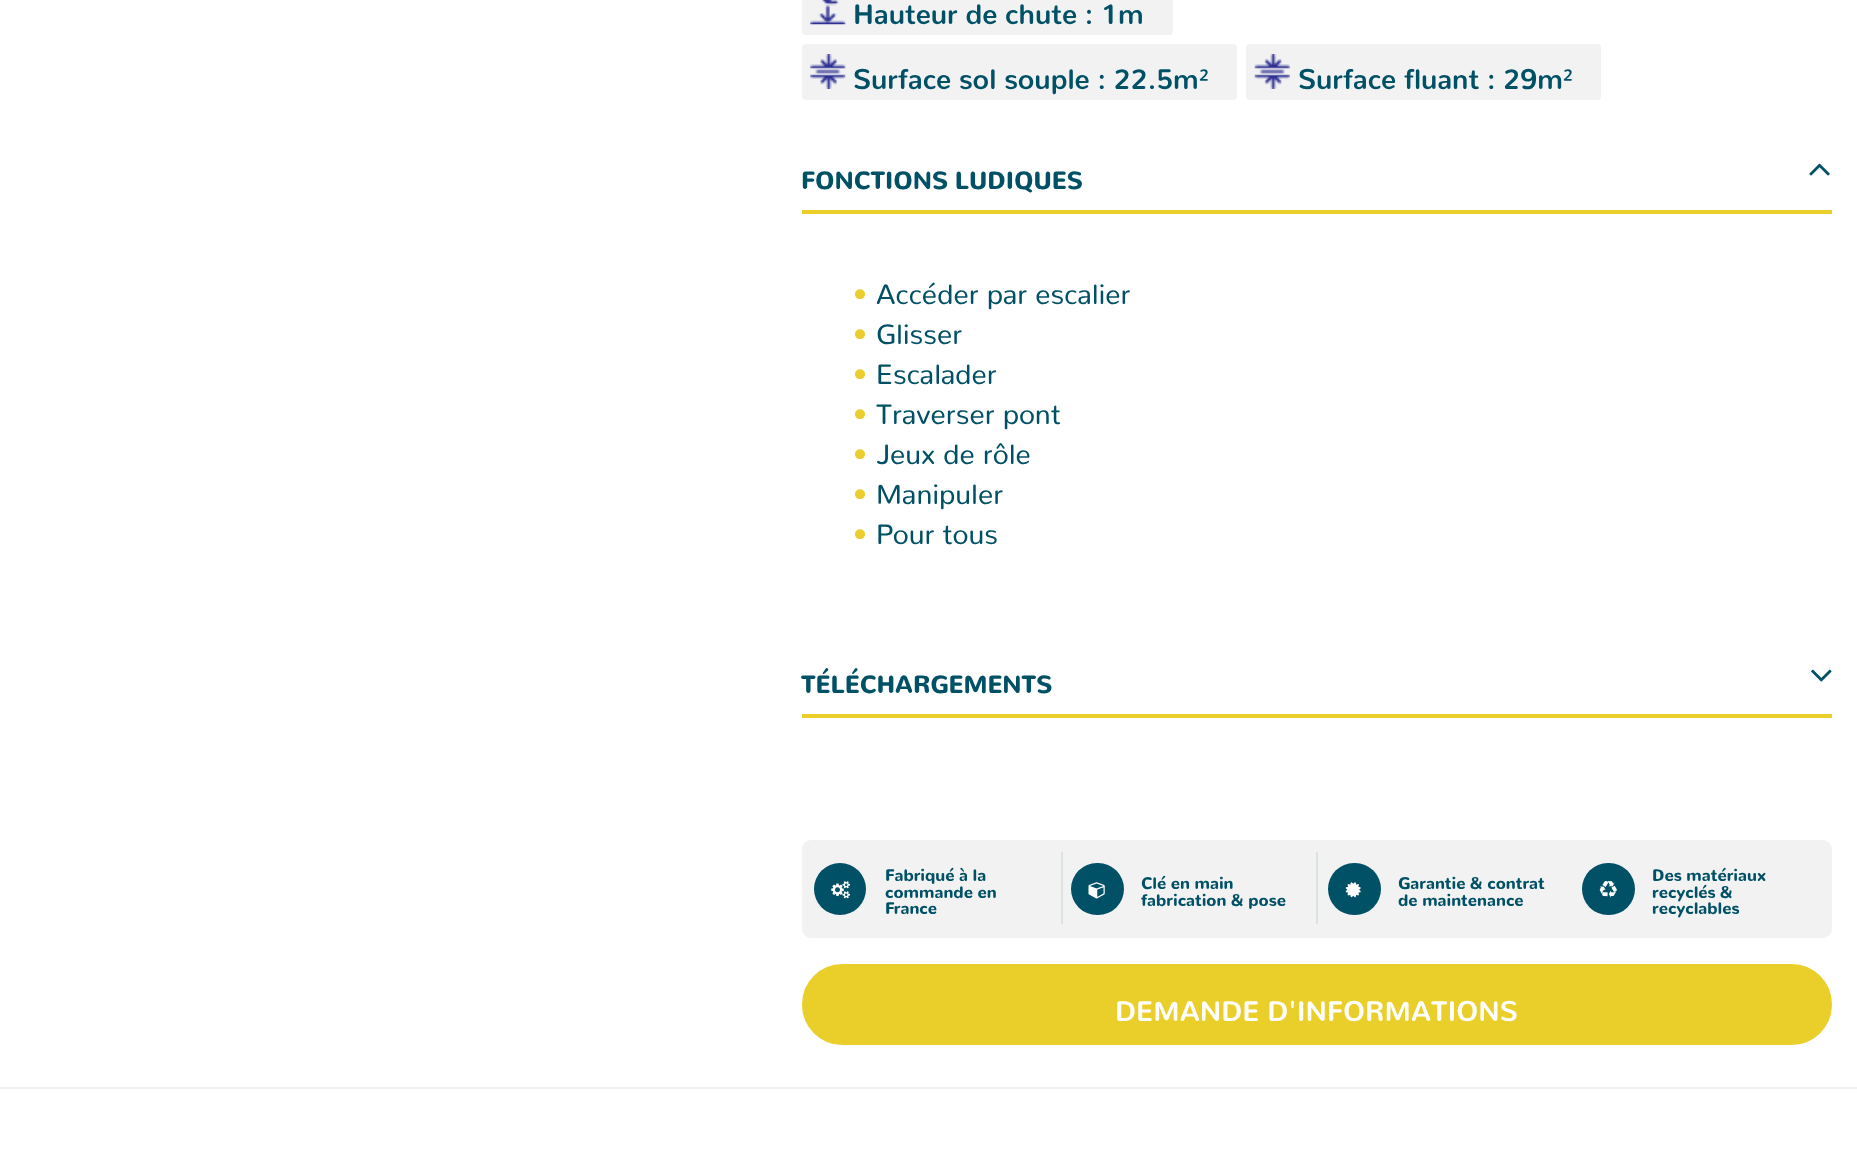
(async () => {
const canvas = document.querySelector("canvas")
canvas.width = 1857
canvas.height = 1166
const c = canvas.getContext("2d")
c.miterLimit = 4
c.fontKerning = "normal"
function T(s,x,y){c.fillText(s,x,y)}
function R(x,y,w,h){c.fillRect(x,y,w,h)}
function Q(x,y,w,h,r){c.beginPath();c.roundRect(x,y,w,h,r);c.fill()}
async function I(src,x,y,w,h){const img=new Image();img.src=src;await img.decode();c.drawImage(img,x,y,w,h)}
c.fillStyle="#fff"
R(0,0,1857,1166)
c.fillStyle="#f2f2f2"
Q(802,-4,371,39,4)
await I("1.png",810,0,36,25)
c.font="bold 28px Nunito"
c.fillStyle="#005066"
T("Hauteur de chute : 1m",853,24)
c.fillStyle="#f2f2f2"
Q(802,44,435,56,4)
await I("2.png",810,54,36,35)
c.fillStyle="#005066"
T("Surface sol souple : 22.5m²",853,89)
c.fillStyle="#f2f2f2"
Q(1246,44,355,56,4)
await I("3.png",1254,54,36,35)
c.fillStyle="#005066"
T("Surface fluant : 29m²",1298,89)
c.fillStyle="#eace2a"
R(802,210,1030,4)
await I("4.png",1809,163,21,13)
c.font="900 24.5px Nunito"
c.fillStyle="#005066"
T("FONCTIONS LUDIQUES",801,189)
c.font="28px Nunito"
c.fillStyle="#eace2a"
T("•",853,304)
c.fillStyle="#005066"
T("Accéder par escalier",876,304)
c.fillStyle="#eace2a"
T("•",853,344)
c.fillStyle="#005066"
T("Glisser",876,344)
c.fillStyle="#eace2a"
T("•",853,384)
c.fillStyle="#005066"
T("Escalader",876,384)
c.fillStyle="#eace2a"
T("•",853,424)
c.fillStyle="#005066"
T("Traverser pont",876,424)
c.fillStyle="#eace2a"
T("•",853,464)
c.fillStyle="#005066"
T("Jeux de rôle",876,464)
c.fillStyle="#eace2a"
T("•",853,504)
c.fillStyle="#005066"
T("Manipuler",876,504)
c.fillStyle="#eace2a"
T("•",853,544)
c.fillStyle="#005066"
T("Pour tous",876,544)
c.fillStyle="#eace2a"
R(802,714,1030,4)
c.font="900 24.5px Nunito"
c.fillStyle="#005066"
T("TÉLÉCHARGEMENTS",801,693)
await I("5.png",1811,669,21,13)
c.fillStyle="#f2f2f2"
Q(802,840,1030,98,9)
c.fillStyle="#005066"
c.beginPath()
c.arc(840,889,26,0,7)
c.fill()
await I("6.png",831,881,19,18)
c.font="900 16.5px Nunito"
T("Fabriqué à la",885,881)
T("commande en",885,898)
T("France",885,914)
c.fillStyle="#dae2e4"
R(1061,852,2,72)
c.fillStyle="#005066"
Q(1071,863,53,52,26)
await I("7.png",1088,882,17,17)
T("Clé en main",1141,889)
T("fabrication & pose",1141,906)
c.fillStyle="#dae2e4"
R(1316,852,2,72)
c.fillStyle="#005066"
Q(1328,863,53,52,26)
await I("8.png",1345,882,16,16)
T("Garantie & contrat",1398,889)
T("de maintenance",1398,906)
Q(1582,863,53,52,26)
await I("9.png",1599,881,18,17)
T("Des matériaux",1652,881)
T("recyclés &",1652,898)
T("recyclables",1652,914)
c.fillStyle="#eace2a"
c.beginPath()
c.roundRect(804,966,1026,77,38.5)
c.fill()
c.strokeStyle="#eace2a"
c.lineWidth=4
c.stroke()
c.font="bold 28px Nunito"
c.fillStyle="#fff"
T("DEMANDE D'INFORMATIONS",1115,1021)
c.fillStyle="#f2f2f2"
R(0,1087,1857,2)
})()
